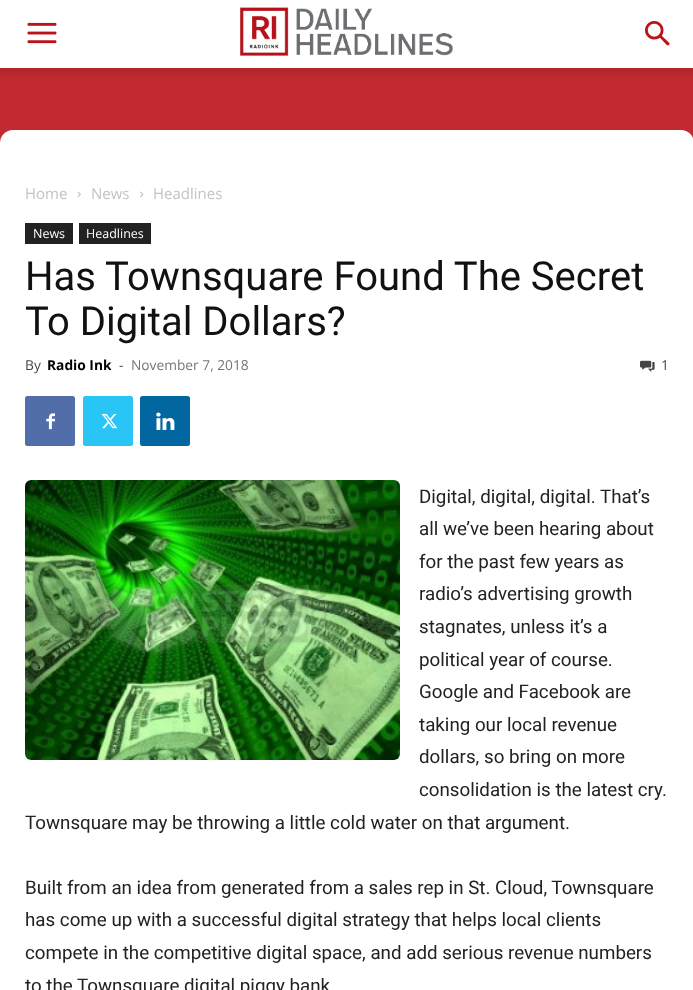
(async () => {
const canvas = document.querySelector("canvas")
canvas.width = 693
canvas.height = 990
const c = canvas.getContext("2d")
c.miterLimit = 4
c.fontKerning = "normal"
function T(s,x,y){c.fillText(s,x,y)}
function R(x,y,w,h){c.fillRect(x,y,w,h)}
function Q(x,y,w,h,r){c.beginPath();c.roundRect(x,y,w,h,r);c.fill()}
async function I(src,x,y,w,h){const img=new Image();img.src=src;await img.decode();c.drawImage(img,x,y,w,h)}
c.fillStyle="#c02a30"
R(0,0,693,990)
c.fillStyle="#fff"
R(0,0,693,68)
await I("1.png",27,22,30,22)
await I("2.png",240,7,213,49)
await I("3.png",645,21,25,25)
await I("4.png",0,68,693,10)
Q(0,130,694,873,13)
c.font="15px Open Sans"
c.fillStyle="#c3c3c3"
T("Home",25,199)
await I("5.png",77,191,4,7)
T("News",91,199)
await I("6.png",140,191,4,7)
T("Headlines",153,199)
c.fillStyle="#222"
R(25,223,48,21)
c.font="12.5px Open Sans"
c.fillStyle="#fff"
T("News",33,238)
c.fillStyle="#222"
R(79,223,72,21)
c.fillStyle="#fff"
T("Headlines",86,238)
c.font="40px Roboto"
c.fillStyle="#111"
T("Has Townsquare Found The Secret",25,290)
T("To Digital Dollars?",25,335)
c.font="13.75px Open Sans"
c.fillStyle="#444"
T("By",25,370)
c.font="bold 13.75px Open Sans"
c.fillStyle="#000"
T("Radio Ink",47,370)
c.font="13.75px Open Sans"
c.fillStyle="#444"
T("-",119,370)
c.fillStyle="#767676"
T("November 7, 2018",131,370)
await I("7.png",640,360,15,12)
c.fillStyle="#444"
T("1",661,370)
c.fillStyle="#516eab"
Q(25,396,50,50,2.5)
await I("8.png",46,413,9,17)
c.fillStyle="#29c5f6"
Q(83,396,50,50,2.5)
await I("9.png",101,414,17,15)
c.fillStyle="#0266a0"
Q(140,396,50,50,2.5)
await I("10.png",156,412,19,18)
await I("11.png",25,480,375,280)
c.font="18.75px Roboto"
c.fillStyle="#222"
T("Digital, digital, digital. That’s",419,503)
T("all we’ve been hearing about",419,535)
T("for the past few years as",419,568)
T("radio’s advertising growth",419,600)
T("stagnates, unless it’s a",419,633)
T("political year of course.",419,666)
T("Google and Facebook are",419,698)
T("taking our local revenue",419,731)
T("dollars, so bring on more",419,763)
T("consolidation is the latest cry.",419,796)
T("Townsquare may be throwing a little cold water on that argument.",25,829)
T("Built from an idea from generated from a sales rep in St. Cloud, Townsquare",25,894)
T("has come up with a successful digital strategy that helps local clients",25,926)
T("compete in the competitive digital space, and add serious revenue numbers",25,959)
T("to the Townsquare digital piggy bank",25,992)
})()
